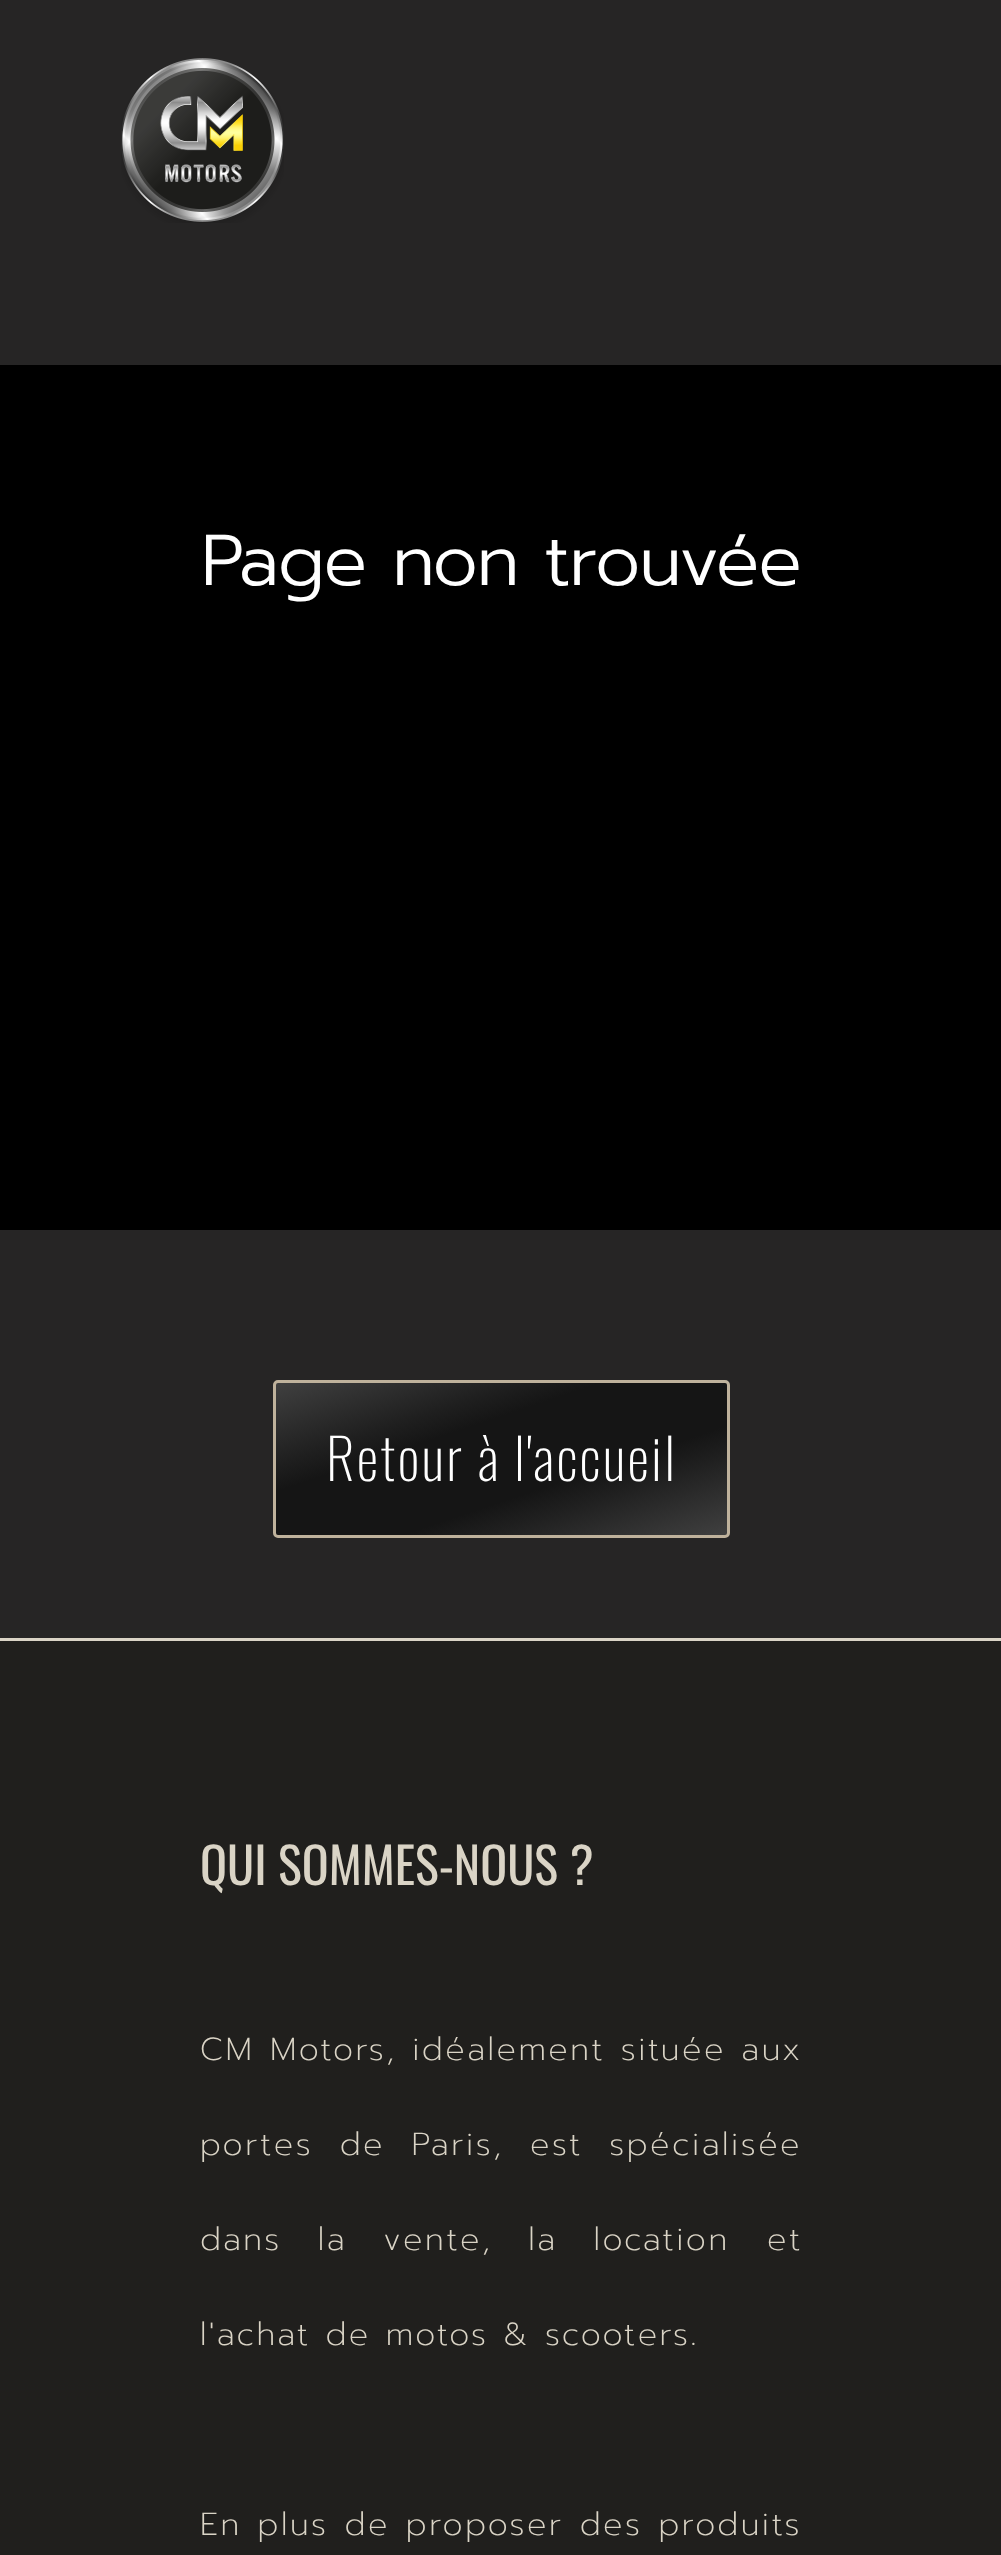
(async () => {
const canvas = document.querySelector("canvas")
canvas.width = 1001
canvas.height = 2555
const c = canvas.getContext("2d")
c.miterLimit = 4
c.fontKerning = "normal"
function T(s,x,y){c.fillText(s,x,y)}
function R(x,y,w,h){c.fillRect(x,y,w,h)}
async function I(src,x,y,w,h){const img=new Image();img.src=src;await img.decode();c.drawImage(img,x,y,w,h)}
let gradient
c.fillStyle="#000"
R(0,0,1001,2555)
c.fillStyle="#262525"
R(0,0,1001,365)
await I("1.png",121,58,163,165)
c.letterSpacing="-1.25px"
c.font="300 72px Prompt"
c.fillStyle="#fff"
T("Page non trouvée",201,585)
c.fillStyle="#262525"
R(0,1230,1001,408)
gradient = c.createLinearGradient(455,1322,547,1596)
gradient.addColorStop(0,"#404040")
gradient.addColorStop(.09,"#353535")
gradient.addColorStop(.18,"#2a2a2a")
gradient.addColorStop(.27,"#1f1f1f")
gradient.addColorStop(.36,"#151515")
gradient.addColorStop(.64,"#151515")
gradient.addColorStop(.73,"#1f1f1f")
gradient.addColorStop(.82,"#2a2a2a")
gradient.addColorStop(.91,"#353535")
gradient.addColorStop(1,"#404040")
c.fillStyle = gradient
R(276,1383,451,152)
c.beginPath()
c.roundRect(274.5,1381.5,454,155,3.5)
c.strokeStyle="#bfb29c"
c.lineWidth=3
c.stroke()
c.letterSpacing="2.5px"
c.font="200 56px Oswald"
c.fillStyle="#fff"
T("Retour à l'accueil",326,1481)
gradient = c.createLinearGradient(501,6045,501,1640)
gradient.addColorStop(0,"#404040")
gradient.addColorStop(.09,"#3a3a3a")
gradient.addColorStop(.18,"#343334")
gradient.addColorStop(.27,"#2f2d2d")
gradient.addColorStop(.36,"#292726")
gradient.addColorStop(.45,"#262423")
gradient.addColorStop(.55,"#232220")
gradient.addColorStop(.64,"#201f1d")
gradient.addColorStop(1,"#201f1d")
c.fillStyle = gradient
R(0,1641,1001,914)
c.fillStyle="#dad4c6"
R(0,1638,1001,3)
c.letterSpacing="0px"
c.font="50px Oswald"
T("QUI SOMMES-NOUS ?",200,1885)
c.letterSpacing="2.5px"
c.wordSpacing="0.5px"
c.font="200 32px Prompt"
T("CM Motors, idéalement située aux",200,2060)
c.wordSpacing="11.5px"
T("portes de Paris, est spécialisée",200,2155)
c.wordSpacing="21px"
T("dans la vente, la location",200,2250)
c.wordSpacing="0px"
T("et",767,2250)
T("l'achat de motos & scooters.",200,2345)
c.wordSpacing="1px"
T("En plus de proposer des produits",200,2535)
})()
